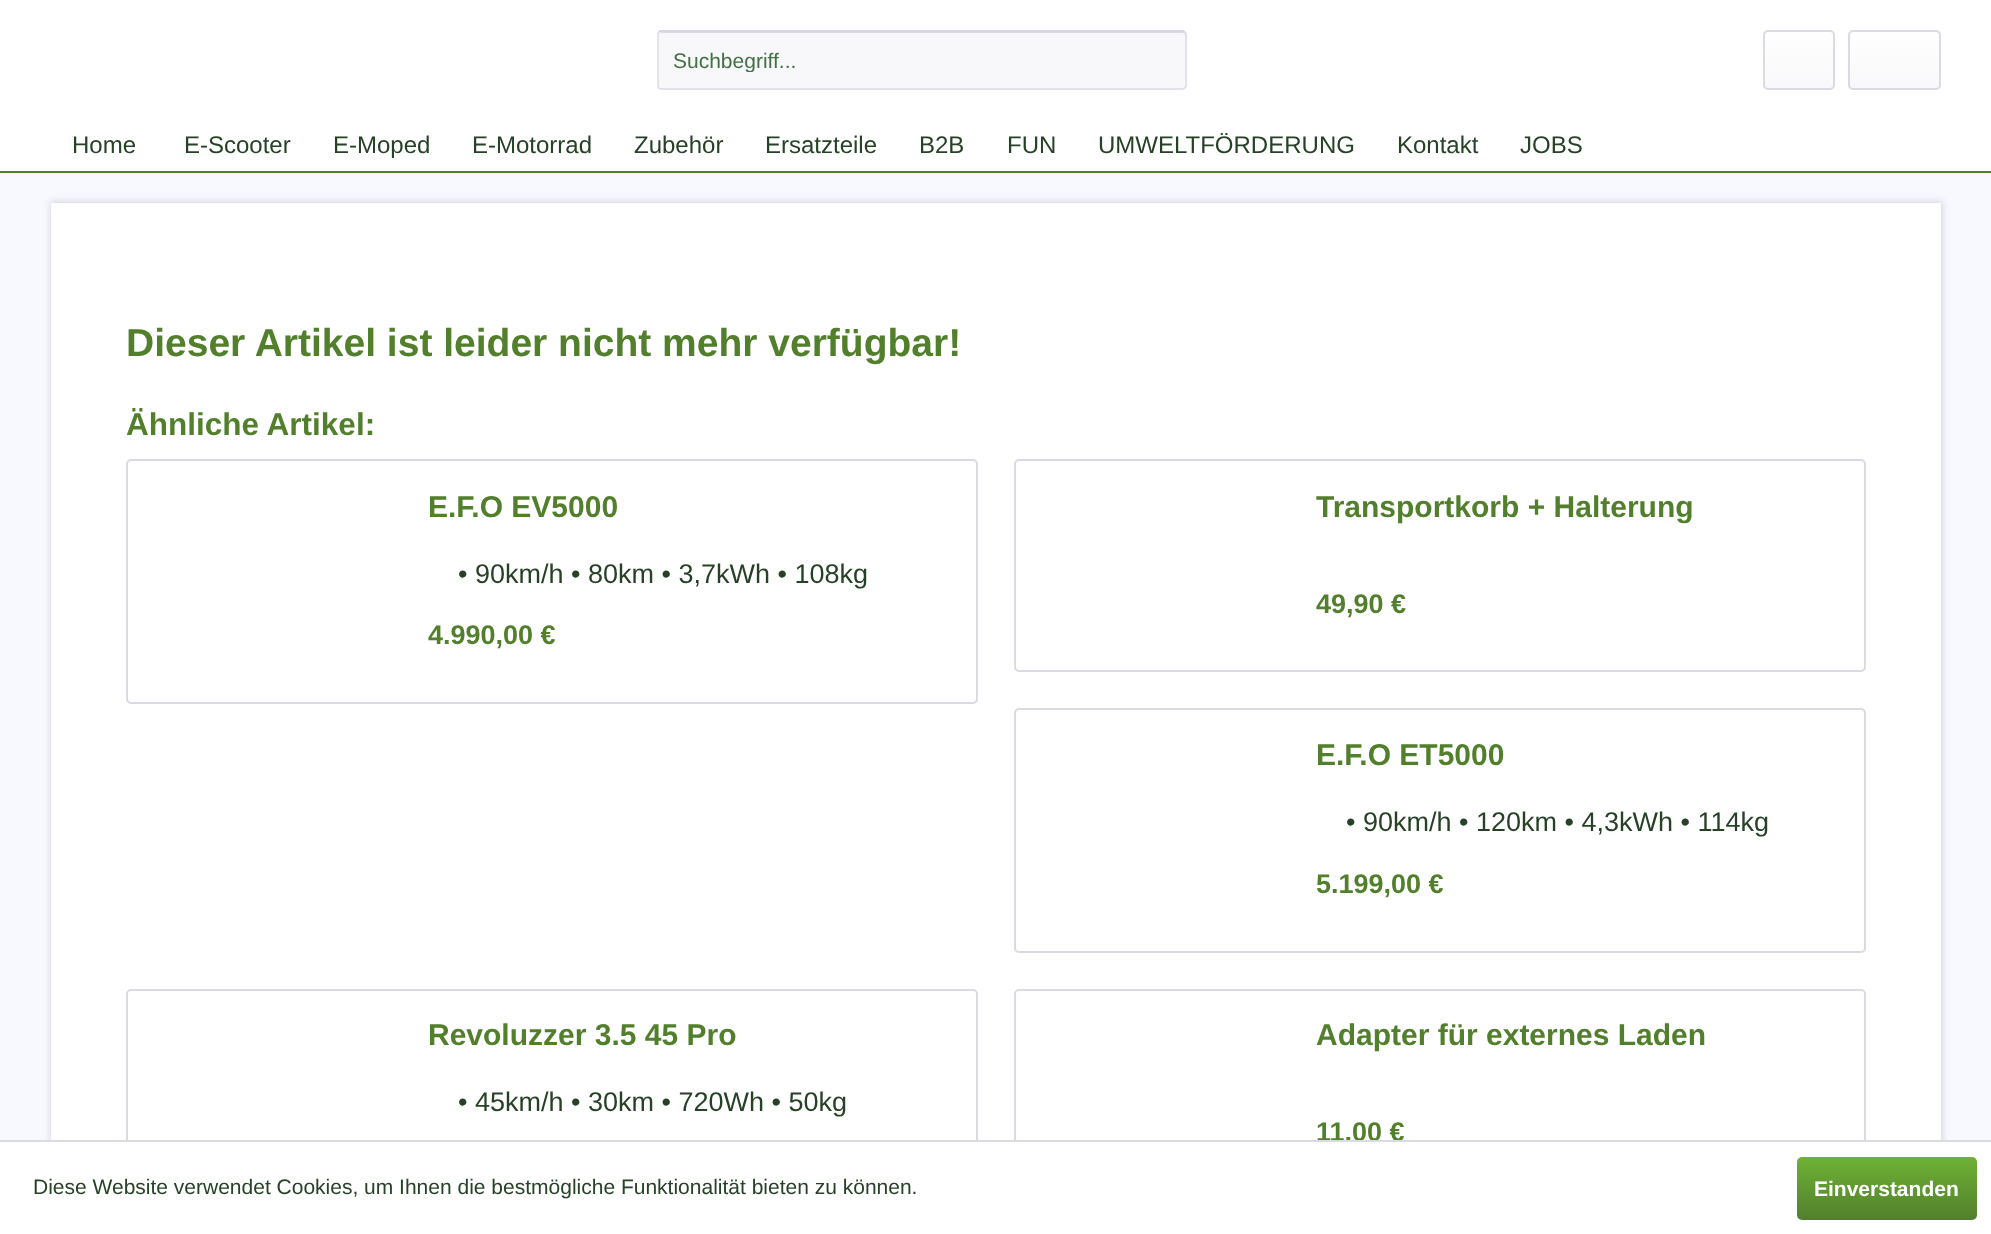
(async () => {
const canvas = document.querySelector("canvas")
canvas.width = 1991
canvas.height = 1234
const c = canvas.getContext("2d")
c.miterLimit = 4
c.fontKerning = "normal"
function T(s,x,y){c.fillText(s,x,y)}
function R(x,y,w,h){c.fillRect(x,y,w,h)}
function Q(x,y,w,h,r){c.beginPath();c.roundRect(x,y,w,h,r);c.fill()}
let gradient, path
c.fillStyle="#f8f8ff"
R(0,0,1991,1234)
c.fillStyle="#fff"
R(0,0,1991,171)
c.fillStyle="#f8f8fa"
Q(657,30,530,60,5)
c.fillStyle="#dadae5"
path = new Path2D("M662 33h520c2 0 3 1 3 3v-1c0-2-1-3-3-3h-520c-1 0-2 1-3 2z")
c.fill(path)
path = new Path2D("M659 32c.5-1 1.5-1 2.5-1h520.5c1 0 2 0 2.5 1")
c.strokeStyle="#cbcbdb"
c.lineWidth=1.5
c.stroke(path)
path = new Path2D("M1184.5 32c1 .5 1.5 1.5 1.5 2.5v51c0 1-.5 2-1.5 2.5c-.5 1-1.5 1-2.5 1h-520.5c-1 0-2 0-2.5-1c-1-.5-1-1.5-1-2.5v-51c0-1 0-2 1-2.5")
c.strokeStyle="#dadae5"
c.stroke(path)
c.save()
c.beginPath()
c.rect(672,48,450,24)
c.clip()
c.font="21px Liberation Sans"
c.fillStyle="#447144"
T("Suchbegriff...",673,68)
c.restore()
gradient = c.createLinearGradient(1799,31,1799,89)
gradient.addColorStop(0,"#fff")
gradient.addColorStop(1,"#f8f8fa")
c.fillStyle = gradient
Q(1764,32,69,57,3)
c.beginPath()
c.roundRect(1764,31,70,58,4)
c.lineWidth=2
c.stroke()
gradient = c.createLinearGradient(1895,31,1895,89)
gradient.addColorStop(0,"#fff")
gradient.addColorStop(1,"#f8f8fa")
c.fillStyle = gradient
Q(1850,32,90,57,3)
c.beginPath()
c.roundRect(1849,31,91,58,4)
c.stroke()
c.fillStyle="#527f2c"
R(0,171,1991,2)
c.font="24px Liberation Sans"
c.fillStyle="#274127"
T("Home",72,153)
T("E-Scooter",184,153)
T("E-Moped",333,153)
T("E-Motorrad",472,153)
T("Zubehör",634,153)
T("Ersatzteile",765,153)
T("B2B",919,153)
T("FUN",1007,153)
T("UMWELTFÖRDERUNG",1098,153)
T("Kontakt",1397,153)
T("JOBS",1520,153)
c.fillStyle="#dadae5"
c.filter="blur(3px)"
c.beginPath()
c.rect(50,201,1893,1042)
c.fill()
c.filter="none"
c.fillStyle="#fff"
R(51,203,1890,937)
c.font="bold 39px Liberation Sans"
c.fillStyle="#527f2c"
T("Dieser Artikel ist leider nicht mehr verfügbar!",126,356)
c.font="bold 31.5px Liberation Sans"
T("Ähnliche Artikel:",126,435)
c.beginPath()
c.roundRect(127,460,850,243,4)
c.stroke()
c.font="bold 30px Liberation Sans"
T("E.F.O EV5000",428,517)
c.font="27px Liberation Sans"
c.fillStyle="#274127"
T("• 90km/h • 80km • 3,7kWh • 108kg",458,583)
c.font="bold 27px Liberation Sans"
c.fillStyle="#527f2c"
T("4.990,00 €",428,644)
c.beginPath()
c.roundRect(1015,460,850,211,4)
c.stroke()
c.font="bold 30px Liberation Sans"
T("Transportkorb + Halterung",1316,517)
c.font="bold 27px Liberation Sans"
T("49,90 €",1316,613)
c.beginPath()
c.roundRect(1015,709,850,243,4)
c.stroke()
c.font="bold 30px Liberation Sans"
T("E.F.O ET5000",1316,765)
c.font="27px Liberation Sans"
c.fillStyle="#274127"
T("• 90km/h • 120km • 4,3kWh • 114kg",1346,831)
c.font="bold 27px Liberation Sans"
c.fillStyle="#527f2c"
T("5.199,00 €",1316,893)
c.beginPath()
c.roundRect(127,990,850,242,4)
c.stroke()
c.font="bold 30px Liberation Sans"
T("Revoluzzer 3.5 45 Pro",428,1045)
c.font="27px Liberation Sans"
c.fillStyle="#274127"
T("• 45km/h • 30km • 720Wh • 50kg",458,1111)
c.beginPath()
c.roundRect(1015,990,850,211,4)
c.stroke()
c.font="bold 30px Liberation Sans"
c.fillStyle="#527f2c"
T("Adapter für externes Laden",1316,1045)
c.font="bold 27px Liberation Sans"
T("11,00 €",1316,1141)
c.fillStyle="#fff"
R(0,1142,1991,92)
c.fillStyle="#dadae5"
R(0,1140,1991,2)
c.font="21px Liberation Sans"
c.fillStyle="#274127"
T("Diese Website verwendet Cookies, um Ihnen die bestmögliche Funktionalität bieten zu können.",33,1194)
gradient = c.createLinearGradient(1887,1157,1887,1220)
gradient.addColorStop(0,"#6fb236")
gradient.addColorStop(1,"#527f2c")
c.fillStyle = gradient
Q(1797,1157,180,63,5)
c.font="bold 21px Liberation Sans"
c.fillStyle="#fff"
T("Einverstanden",1814,1196)
})()
